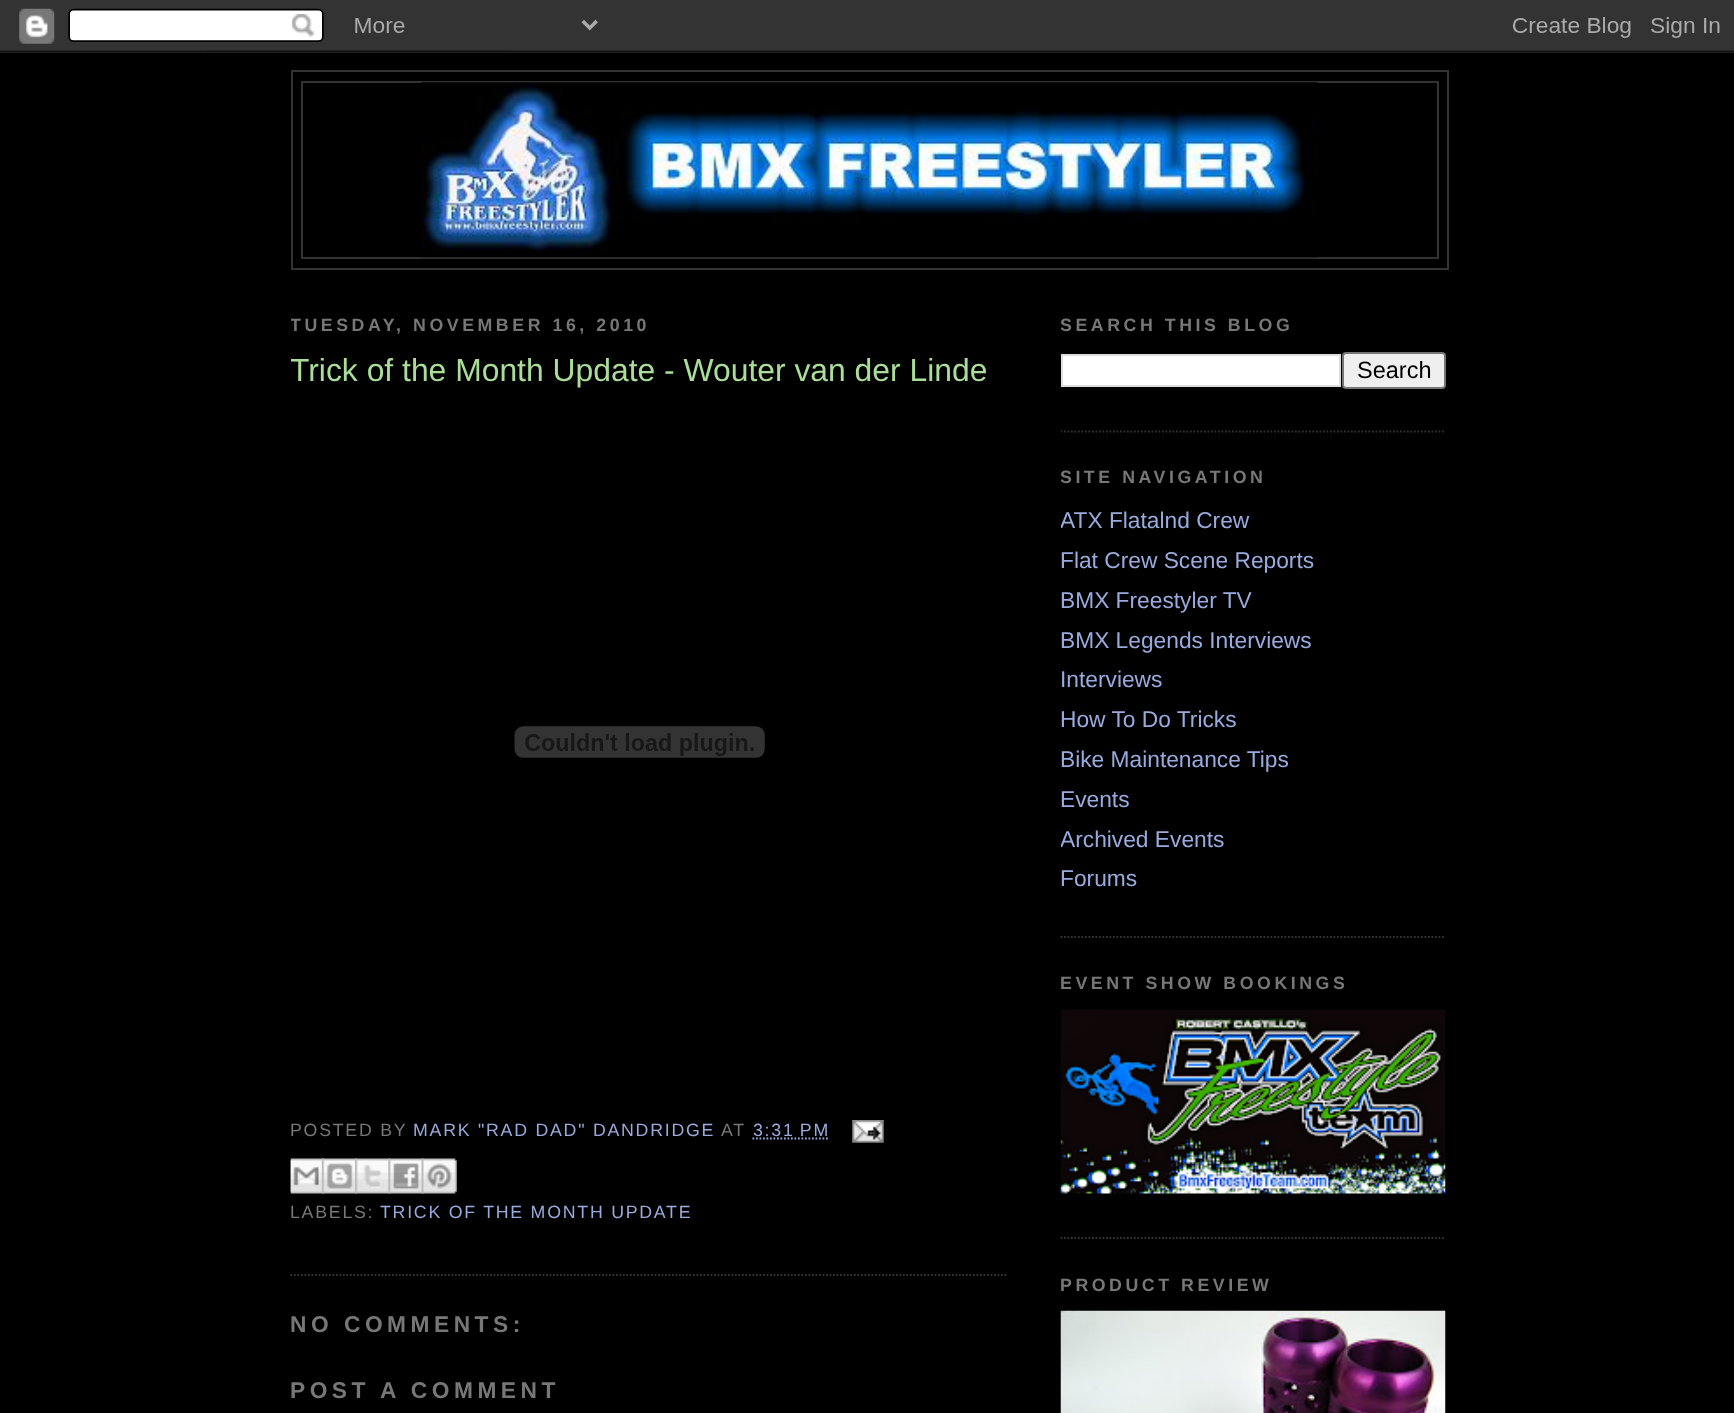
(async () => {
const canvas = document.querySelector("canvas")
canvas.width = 1734
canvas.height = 1413
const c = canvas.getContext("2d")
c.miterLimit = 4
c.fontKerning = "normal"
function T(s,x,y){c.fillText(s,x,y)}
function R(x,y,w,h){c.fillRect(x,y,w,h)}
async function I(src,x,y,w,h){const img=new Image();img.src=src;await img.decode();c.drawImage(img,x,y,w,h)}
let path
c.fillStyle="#000"
R(0,0,1734,1413)
await I("1.png",0,0,1734,53)
c.strokeStyle="#333"
c.lineWidth=2
c.strokeRect(292,71,1156,198)
c.strokeRect(302,82,1136,176)
await I("2.png",421,82,897,176)
c.save()
c.beginPath()
c.rect(291,287,717,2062)
c.clip()
c.letterSpacing="3.55px"
c.font="bold 17.75px Liberation Sans"
c.fillStyle="#777"
T("TUESDAY, NOVEMBER 16, 2010",290,331)
c.restore()
path = new Path2D("M290.5 1275h717.5")
c.lineWidth=1.8
c.setLineDash([1.75,1.75])
c.stroke(path)
c.save()
c.beginPath()
c.rect(291,287,717,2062)
c.clip()
c.font="31.85px Liberation Sans"
c.fillStyle="#ad9"
T("Trick of the Month Update - Wouter van der Linde",290,381)
c.restore()
await I("3.png",514,726,251,32)
c.letterSpacing="1.75px"
c.font="17.75px Liberation Sans"
c.fillStyle="#777"
T("POSTED BY",290,1136)
c.fillStyle="#9ad"
T("MARK \"RAD DAD\" DANDRIDGE",413,1136)
c.fillStyle="#777"
T("AT",721,1136)
c.fillStyle="#9ad"
T("3:31 PM",753,1136)
path = new Path2D("M752.5 1138.5h77")
c.strokeStyle="#9ad"
c.stroke(path)
await I("4.png",852,1120,32,23)
await I("5.png",290,1158,34,36)
await I("6.png",322,1158,35,36)
await I("7.png",355,1158,36,36)
await I("8.png",388,1158,36,36)
await I("9.png",421,1158,36,36)
c.fillStyle="#777"
T("LABELS:",290,1218)
c.fillStyle="#9ad"
T("TRICK OF THE MONTH UPDATE",380,1218)
c.letterSpacing="4.5px"
c.font="bold 22.75px Liberation Sans"
c.fillStyle="#777"
T("NO COMMENTS:",290,1332)
T("POST A COMMENT",290,1398)
c.save()
c.beginPath()
c.rect(1061,287,385,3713)
c.clip()
path = new Path2D("M1060.5 431.5h385")
c.strokeStyle="#333"
c.stroke(path)
c.letterSpacing="3.55px"
c.font="bold 17.75px Liberation Sans"
T("SEARCH THIS BLOG",1060,331)
c.restore()
c.fillStyle="#fff"
c.beginPath()
c.rect(1062,355,278,31)
c.fill()
c.strokeStyle="#ddd"
c.lineWidth=2
c.setLineDash([])
c.stroke()
c.fillStyle="#efefef"
c.beginPath()
c.roundRect(1343,353,102,35,3)
c.fill()
c.strokeStyle="#767676"
c.stroke()
c.letterSpacing="0px"
c.font="23.5px Liberation Sans"
c.fillStyle="#000"
T("Search",1357,378)
path = new Path2D("M1060.5 937h385")
c.strokeStyle="#333"
c.lineWidth=1.8
c.setLineDash([1.75,1.75])
c.stroke(path)
c.save()
c.beginPath()
c.rect(1061,287,385,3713)
c.clip()
c.letterSpacing="3.55px"
c.font="bold 17.75px Liberation Sans"
c.fillStyle="#777"
T("SITE NAVIGATION",1060,483)
c.letterSpacing="0px"
c.font="22.75px Liberation Sans"
c.fillStyle="#9ad"
T("ATX Flatalnd Crew",1060,528)
c.restore()
c.font="22.75px Liberation Sans"
c.fillStyle="#9ad"
T("Flat Crew Scene Reports",1060,568)
T("BMX Freestyler TV",1060,608)
T("BMX Legends Interviews",1060,648)
T("Interviews",1060,687)
T("How To Do Tricks",1060,727)
T("Bike Maintenance Tips",1060,767)
T("Events",1060,807)
c.save()
c.beginPath()
c.rect(1061,287,385,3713)
c.clip()
T("Archived Events",1060,847)
c.restore()
T("Forums",1060,886)
path = new Path2D("M1060.5 1238h385")
c.stroke(path)
c.save()
c.beginPath()
c.rect(1061,287,385,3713)
c.clip()
c.letterSpacing="3.55px"
c.font="bold 17.75px Liberation Sans"
c.fillStyle="#777"
T("EVENT SHOW BOOKINGS",1060,989)
c.restore()
await I("10.png",1060,1009,386,185)
c.save()
c.beginPath()
c.rect(1061,287,385,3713)
c.clip()
c.letterSpacing="3.55px"
c.font="bold 17.75px Liberation Sans"
c.fillStyle="#777"
T("PRODUCT REVIEW",1060,1291)
c.restore()
await I("11.png",1060,1310,386,103)
})()
